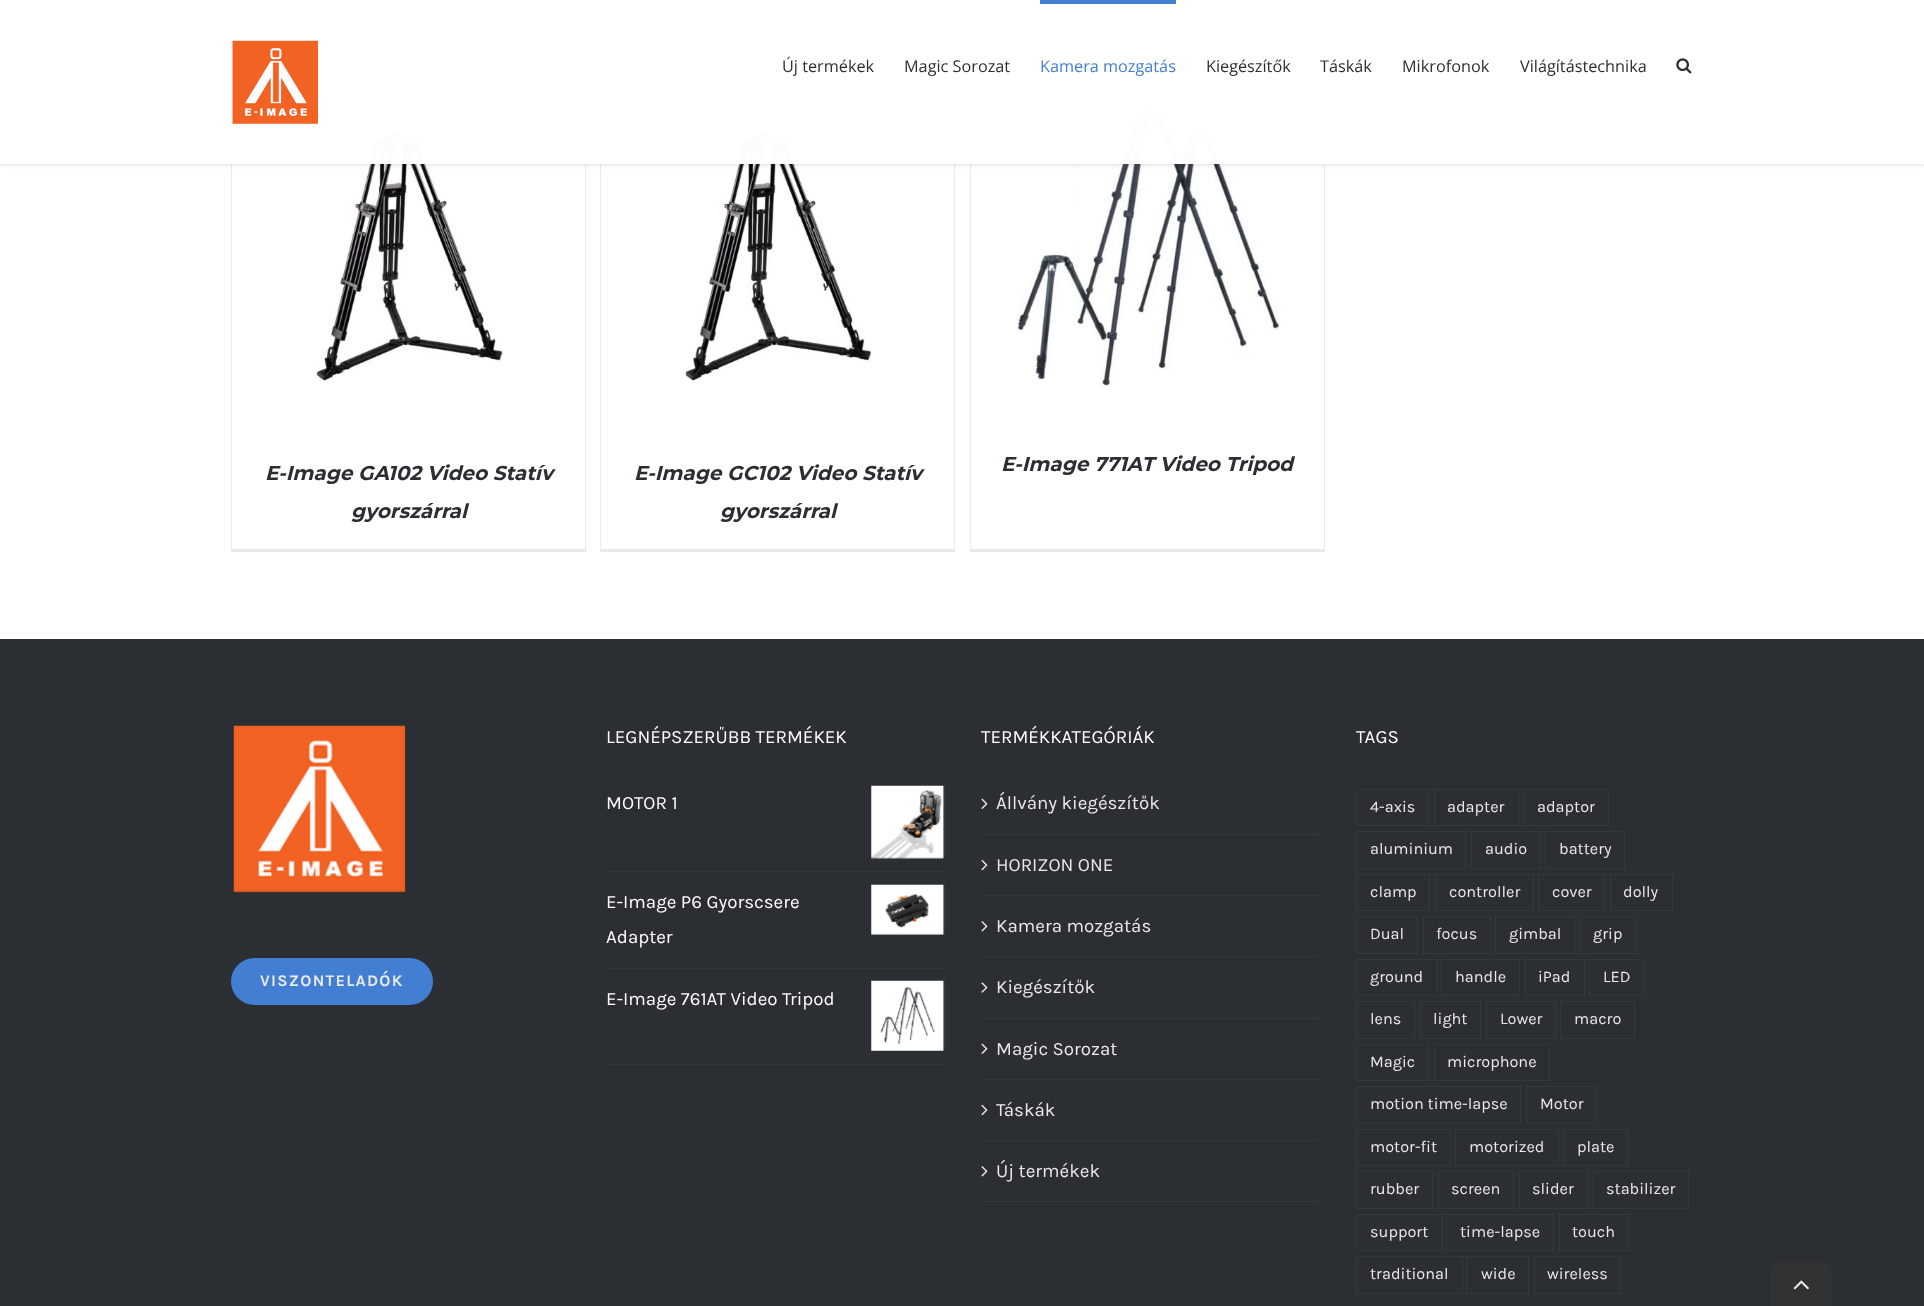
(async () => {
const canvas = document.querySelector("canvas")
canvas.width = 1924
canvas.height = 1306
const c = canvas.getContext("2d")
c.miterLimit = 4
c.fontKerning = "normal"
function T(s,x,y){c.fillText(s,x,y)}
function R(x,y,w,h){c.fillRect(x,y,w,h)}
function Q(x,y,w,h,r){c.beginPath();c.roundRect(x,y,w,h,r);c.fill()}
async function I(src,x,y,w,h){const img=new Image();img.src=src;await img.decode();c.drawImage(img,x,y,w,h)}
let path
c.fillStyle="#fff"
R(0,0,1924,1306)
c.fillStyle="#eaeaea"
R(585,0,1,64)
R(231,61,355,3)
R(231,0,1,64)
R(954,0,1,64)
R(600,61,355,3)
R(600,0,1,64)
R(1324,0,1,64)
R(970,61,355,3)
R(970,0,1,64)
R(1693,0,1,64)
R(1339,61,355,3)
R(1339,0,1,64)
R(231,76,355,1)
R(585,76,1,475)
R(231,549,355,3)
R(231,76,1,475)
await I("3.png",316,132,187,249)
R(600,76,355,1)
R(954,76,1,475)
R(600,549,355,3)
R(600,76,1,475)
await I("4.png",685,132,187,249)
R(970,76,355,1)
R(1324,76,1,475)
R(970,549,355,3)
R(970,76,1,475)
await I("5.png",1016,110,265,277)
c.save()
path = new Path2D("M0 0h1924v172h-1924zm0 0h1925v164h-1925z")
c.clip(path,"evenodd")
c.fillStyle="#0000001f"
c.filter="blur(2px)"
c.beginPath()
c.rect(0,1,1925,164)
c.fill()
c.filter="none"
c.restore()
c.fillStyle="#fffffffc"
R(0,0,1924,164)
await I("1.png",232,40,86,84)
c.font="16.25px Open Sans"
c.fillStyle="#2b2e32"
T("Új termékek",782,72)
T("Magic Sorozat",904,72)
c.fillStyle="#427ed1"
R(1040,0,136,4)
T("Kamera mozgatás",1040,72)
c.fillStyle="#2b2e32"
T("Kiegészítők",1206,72)
T("Táskák",1320,72)
T("Mikrofonok",1402,72)
T("Világítástechnika",1520,72)
await I("2.png",1676,58,16,16)
c.font="italic 100 20px Montserrat"
T("E-Image GA102 Video Statív",265,480)
T("gyorszárral",351,518)
T("E-Image GC102 Video Statív",634,480)
T("gyorszárral",720,518)
T("E-Image 771AT Video Tripod",1001,471)
R(0,639,1924,667)
await I("6.png",233,725,173,168)
c.fillStyle="#427ed1"
Q(231,958,202,47,23.5)
c.letterSpacing="1.25px"
c.font="bold 16.25px Karla"
c.fillStyle="#eaeaea"
T("VISZONTELADÓK",260,986)
c.letterSpacing="0px"
c.font="18.75px Karla"
c.fillStyle="#fff"
T("LEGNÉPSZERŰBB TERMÉKEK",606,743)
c.fillStyle="#35383c"
R(606,871,338,1)
c.fillStyle="#fff"
T("MOTOR 1",606,809)
await I("7.png",871,785,74,74)
c.fillStyle="#35383c"
R(606,968,338,1)
c.fillStyle="#fff"
T("E-Image P6 Gyorscsere",606,908)
await I("8.png",871,884,74,51)
T("Adapter",606,943)
c.fillStyle="#35383c"
R(606,1064,338,1)
c.fillStyle="#fff"
T("E-Image 761AT Video Tripod",606,1005)
await I("9.png",871,980,74,71)
T("TERMÉKKATEGÓRIÁK",981,743)
c.fillStyle="#35383c"
R(981,834,338,1)
await I("10.png",981,798,7,11)
c.fillStyle="#eaeaea"
T("Állvány kiegészítők",996,809)
c.fillStyle="#35383c"
R(981,895,338,1)
await I("11.png",981,859,7,12)
c.fillStyle="#eaeaea"
T("HORIZON ONE",996,871)
c.fillStyle="#35383c"
R(981,956,338,1)
await I("12.png",981,921,7,11)
c.fillStyle="#eaeaea"
T("Kamera mozgatás",996,932)
c.fillStyle="#35383c"
R(981,1018,338,1)
await I("13.png",981,982,7,11)
c.fillStyle="#eaeaea"
T("Kiegészítők",996,993)
c.fillStyle="#35383c"
R(981,1079,338,1)
await I("10.png",981,1043,7,11)
c.fillStyle="#eaeaea"
T("Magic Sorozat",996,1055)
c.fillStyle="#35383c"
R(981,1140,338,1)
await I("11.png",981,1104,7,12)
c.fillStyle="#eaeaea"
T("Táskák",996,1116)
c.fillStyle="#35383c"
R(981,1201,338,1)
await I("12.png",981,1166,7,11)
c.fillStyle="#eaeaea"
T("Új termékek",996,1177)
c.fillStyle="#fff"
T("TAGS",1356,743)
c.strokeStyle="#35383c"
c.strokeRect(1356.5,789.5,72,36)
c.font="16.25px Karla"
c.fillStyle="#eaeaea"
T("4-axis",1370,812)
c.strokeRect(1434.5,789.5,84,36)
T("adapter",1447,812)
c.strokeRect(1523.5,789.5,85,36)
T("adaptor",1537,812)
c.strokeRect(1356.5,831.5,109,37)
T("aluminium",1370,854)
c.strokeRect(1471.5,831.5,69,37)
T("audio",1485,854)
c.strokeRect(1545.5,831.5,79,37)
T("battery",1559,854)
c.strokeRect(1356.5,874.5,73,36)
T("clamp",1370,897)
c.strokeRect(1435.5,874.5,98,36)
T("controller",1449,897)
c.strokeRect(1538.5,874.5,66,36)
T("cover",1552,897)
c.strokeRect(1610.5,874.5,62,36)
T("dolly",1623,897)
c.strokeRect(1356.5,916.5,61,37)
T("Dual",1370,939)
c.strokeRect(1423.5,916.5,67,37)
T("focus",1436,939)
c.strokeRect(1495.5,916.5,79,37)
T("gimbal",1509,939)
c.strokeRect(1580.5,916.5,55,37)
T("grip",1593,939)
c.strokeRect(1356.5,959.5,81,36)
T("ground",1370,982)
c.strokeRect(1441.5,959.5,78,36)
T("handle",1455,982)
c.strokeRect(1525.5,959.5,59,36)
T("iPad",1538,982)
c.strokeRect(1589.5,959.5,54,36)
T("LED",1603,982)
c.strokeRect(1356.5,1001.5,58,37)
T("lens",1370,1024)
c.strokeRect(1420.5,1001.5,60,37)
T("light",1433,1024)
c.strokeRect(1486.5,1001.5,69,37)
T("Lower",1500,1024)
c.strokeRect(1560.5,1001.5,74,37)
T("macro",1574,1024)
c.strokeRect(1356.5,1044.5,72,36)
T("Magic",1370,1067)
c.strokeRect(1434.5,1044.5,115,36)
T("microphone",1447,1067)
c.strokeRect(1356.5,1086.5,164,37)
T("motion time-lapse",1370,1109)
c.strokeRect(1526.5,1086.5,69,37)
T("Motor",1540,1109)
c.strokeRect(1356.5,1129.5,94,36)
T("motor-fit",1370,1152)
c.strokeRect(1455.5,1129.5,103,36)
T("motorized",1469,1152)
c.strokeRect(1563.5,1129.5,64,36)
T("plate",1577,1152)
c.strokeRect(1356.5,1171.5,76,37)
T("rubber",1370,1194)
c.strokeRect(1438.5,1171.5,75,37)
T("screen",1451,1194)
c.strokeRect(1519.5,1171.5,68,37)
T("slider",1532,1194)
c.strokeRect(1593.5,1171.5,95,37)
T("stabilizer",1606,1194)
c.strokeRect(1356.5,1214.5,86,36)
T("support",1370,1237)
c.strokeRect(1446.5,1214.5,107,36)
T("time-lapse",1460,1237)
c.strokeRect(1559.5,1214.5,69,36)
T("touch",1572,1237)
c.strokeRect(1356.5,1256.5,106,37)
T("traditional",1370,1279)
c.strokeRect(1466.5,1256.5,62,37)
T("wide",1481,1279)
c.strokeRect(1534.5,1256.5,86,37)
T("wireless",1547,1279)
c.fillStyle="#323233"
c.beginPath()
c.roundRect(1771,1263,60,43,[5,5,0,0])
c.fill()
await I("14.png",1793,1280,16,10)
})()
